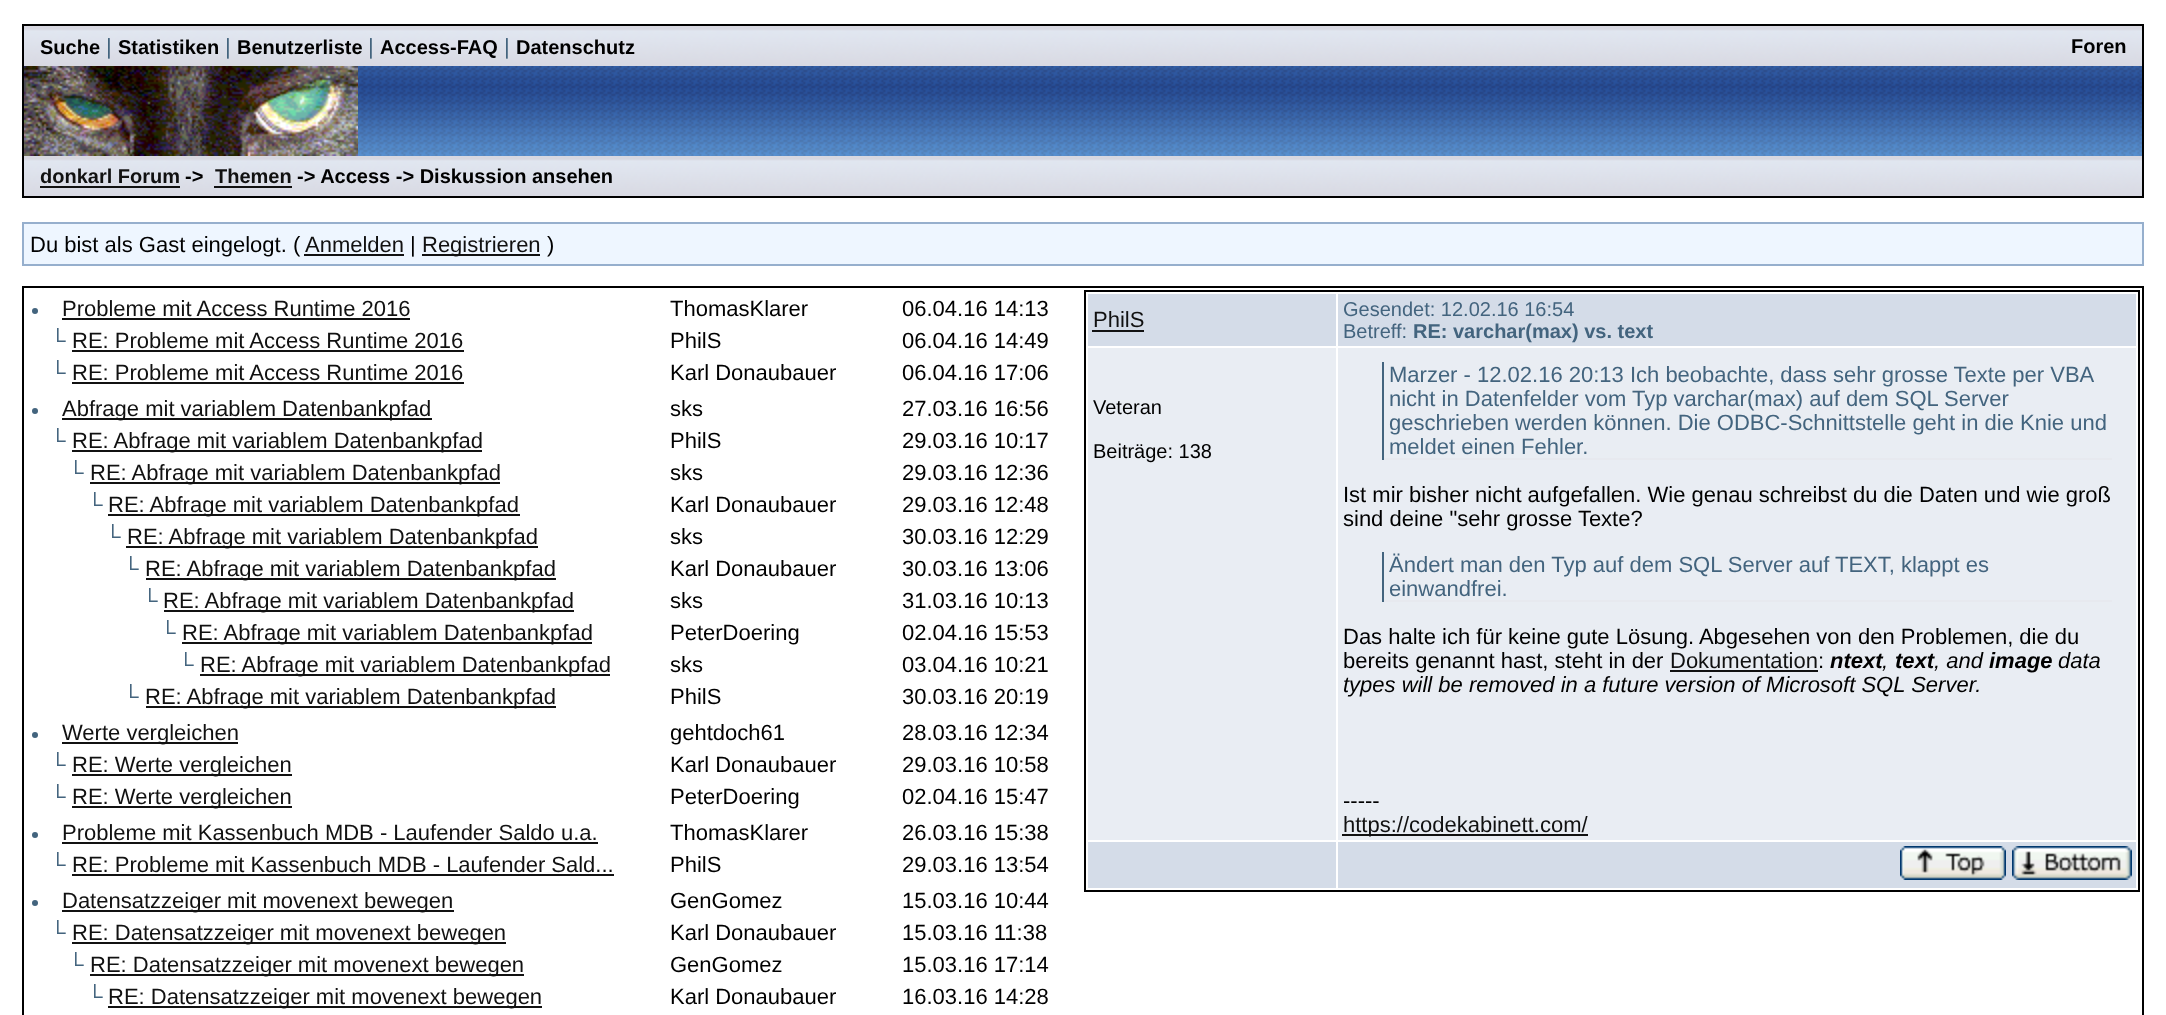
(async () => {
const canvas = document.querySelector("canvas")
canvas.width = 2166
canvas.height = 1015
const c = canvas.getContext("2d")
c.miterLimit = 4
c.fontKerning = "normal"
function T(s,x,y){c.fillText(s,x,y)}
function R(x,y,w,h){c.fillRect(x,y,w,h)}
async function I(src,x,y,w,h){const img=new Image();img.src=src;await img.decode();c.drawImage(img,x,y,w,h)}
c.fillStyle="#fff"
R(0,0,2166,1015)
c.strokeStyle="#000"
c.lineWidth=2
c.strokeRect(23,25,2120,172)
await I("1.png",24,26,2118,40)
c.font="bold 20px Liberation Sans"
c.fillStyle="#000"
T("Suche",40,54)
c.font="22px Liberation Sans"
c.fillStyle="#43647e"
T("|",106,54)
c.font="bold 20px Liberation Sans"
c.fillStyle="#000"
T("Statistiken",118,54)
c.font="22px Liberation Sans"
c.fillStyle="#43647e"
T("|",225,54)
c.font="bold 20px Liberation Sans"
c.fillStyle="#000"
T("Benutzerliste",237,54)
c.font="22px Liberation Sans"
c.fillStyle="#43647e"
T("|",368,54)
c.font="bold 20px Liberation Sans"
c.fillStyle="#000"
T("Access-FAQ",380,54)
c.font="22px Liberation Sans"
c.fillStyle="#43647e"
T("|",504,54)
c.font="bold 20px Liberation Sans"
c.fillStyle="#000"
T("Datenschutz",516,54)
T("Foren",2071,53)
await I("2.png",358,66,1784,90)
await I("3.png",24,66,334,90)
await I("4.png",24,156,2012,40)
c.fillStyle="#111"
T("donkarl Forum",40,183)
R(40,186,140,2)
c.fillStyle="#000"
T("->",185,183)
c.fillStyle="#111"
T("Themen",215,183)
R(214,186,78,2)
c.fillStyle="#000"
T("-> Access -> Diskussion ansehen",297,183)
await I("5.png",2036,156,106,40)
c.strokeStyle="#96afcd"
c.strokeRect(23,223,2120,42)
c.fillStyle="#eef6ff"
R(24,224,2118,40)
c.font="22px Liberation Sans"
c.fillStyle="#000"
T("Du bist als Gast eingelogt. (",30,252)
c.fillStyle="#111"
T("Anmelden",305,252)
R(304,254,100,2)
c.fillStyle="#000"
T("|",410,252)
c.fillStyle="#111"
R(422,254,118,2)
T("Registrieren",422,252)
c.fillStyle="#000"
T(")",547,252)
c.strokeStyle="#000"
c.strokeRect(23,287,2120,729)
c.fillStyle="#43647e"
c.beginPath()
c.arc(35,311,3,0,7)
c.fill()
c.fillStyle="#111"
T("Probleme mit Access Runtime 2016",62,316)
R(62,318,348,2)
c.fillStyle="#000"
T("ThomasKlarer",670,316)
T("06.04.16 14:13",902,316)
c.fillStyle="#43647e"
T("└",50,348)
c.fillStyle="#111"
T("RE: Probleme mit Access Runtime 2016",72,348)
R(72,350,392,2)
c.fillStyle="#000"
T("PhilS",670,348)
T("06.04.16 14:49",902,348)
c.fillStyle="#43647e"
T("└",50,380)
c.fillStyle="#111"
T("RE: Probleme mit Access Runtime 2016",72,380)
R(72,382,392,2)
c.fillStyle="#000"
T("Karl Donaubauer",670,380)
T("06.04.16 17:06",902,380)
c.fillStyle="#43647e"
c.beginPath()
c.arc(35,411,3,0,7)
c.fill()
c.fillStyle="#111"
R(62,418,370,2)
T("Abfrage mit variablem Datenbankpfad",62,416)
c.fillStyle="#000"
T("sks",670,416)
T("27.03.16 16:56",902,416)
c.fillStyle="#43647e"
T("└",50,448)
c.fillStyle="#111"
R(72,450,410,2)
T("RE: Abfrage mit variablem Datenbankpfad",72,448)
c.fillStyle="#000"
T("PhilS",670,448)
T("29.03.16 10:17",902,448)
c.fillStyle="#43647e"
T("└",68,480)
c.fillStyle="#111"
R(90,482,410,2)
T("RE: Abfrage mit variablem Datenbankpfad",90,480)
c.fillStyle="#000"
T("sks",670,480)
T("29.03.16 12:36",902,480)
c.fillStyle="#43647e"
T("└",87,512)
c.fillStyle="#111"
R(108,514,412,2)
T("RE: Abfrage mit variablem Datenbankpfad",108,512)
c.fillStyle="#000"
T("Karl Donaubauer",670,512)
T("29.03.16 12:48",902,512)
c.fillStyle="#43647e"
T("└",105,544)
c.fillStyle="#111"
R(126,546,412,2)
T("RE: Abfrage mit variablem Datenbankpfad",127,544)
c.fillStyle="#000"
T("sks",670,544)
T("30.03.16 12:29",902,544)
c.fillStyle="#43647e"
T("└",123,576)
c.fillStyle="#111"
R(146,578,410,2)
T("RE: Abfrage mit variablem Datenbankpfad",145,576)
c.fillStyle="#000"
T("Karl Donaubauer",670,576)
T("30.03.16 13:06",902,576)
c.fillStyle="#43647e"
T("└",142,608)
c.fillStyle="#111"
R(164,610,410,2)
T("RE: Abfrage mit variablem Datenbankpfad",163,608)
c.fillStyle="#000"
T("sks",670,608)
T("31.03.16 10:13",902,608)
c.fillStyle="#43647e"
T("└",160,640)
c.fillStyle="#111"
R(182,642,410,2)
T("RE: Abfrage mit variablem Datenbankpfad",182,640)
c.fillStyle="#000"
T("PeterDoering",670,640)
T("02.04.16 15:53",902,640)
c.fillStyle="#43647e"
T("└",178,672)
c.fillStyle="#111"
R(200,674,410,2)
T("RE: Abfrage mit variablem Datenbankpfad",200,672)
c.fillStyle="#000"
T("sks",670,672)
T("03.04.16 10:21",902,672)
c.fillStyle="#43647e"
T("└",123,704)
c.fillStyle="#111"
R(146,706,410,2)
T("RE: Abfrage mit variablem Datenbankpfad",145,704)
c.fillStyle="#000"
T("PhilS",670,704)
T("30.03.16 20:19",902,704)
c.fillStyle="#43647e"
c.beginPath()
c.arc(35,735,3,0,7)
c.fill()
c.fillStyle="#111"
R(62,742,176,2)
T("Werte vergleichen",62,740)
c.fillStyle="#000"
T("gehtdoch61",670,740)
T("28.03.16 12:34",902,740)
c.fillStyle="#43647e"
T("└",50,772)
c.fillStyle="#111"
R(72,774,220,2)
T("RE: Werte vergleichen",72,772)
c.fillStyle="#000"
T("Karl Donaubauer",670,772)
T("29.03.16 10:58",902,772)
c.fillStyle="#43647e"
T("└",50,804)
c.fillStyle="#111"
R(72,806,220,2)
T("RE: Werte vergleichen",72,804)
c.fillStyle="#000"
T("PeterDoering",670,804)
T("02.04.16 15:47",902,804)
c.fillStyle="#43647e"
c.beginPath()
c.arc(35,835,3,0,7)
c.fill()
c.fillStyle="#111"
T("Probleme mit Kassenbuch MDB - Laufender Saldo u.a.",62,840)
R(62,842,536,2)
c.fillStyle="#000"
T("ThomasKlarer",670,840)
T("26.03.16 15:38",902,840)
c.fillStyle="#43647e"
T("└",50,872)
c.fillStyle="#111"
T("RE: Probleme mit Kassenbuch MDB - Laufender Sald...",72,872)
R(72,874,542,2)
c.fillStyle="#000"
T("PhilS",670,872)
T("29.03.16 13:54",902,872)
c.fillStyle="#43647e"
c.beginPath()
c.arc(35,903,3,0,7)
c.fill()
c.fillStyle="#111"
R(62,910,392,2)
T("Datensatzzeiger mit movenext bewegen",62,908)
c.fillStyle="#000"
T("GenGomez",670,908)
T("15.03.16 10:44",902,908)
c.fillStyle="#43647e"
T("└",50,940)
c.fillStyle="#111"
R(72,942,434,2)
T("RE: Datensatzzeiger mit movenext bewegen",72,940)
c.fillStyle="#000"
T("Karl Donaubauer",670,940)
T("15.03.16 11:38",902,940)
c.fillStyle="#43647e"
T("└",68,972)
c.fillStyle="#111"
R(90,974,434,2)
T("RE: Datensatzzeiger mit movenext bewegen",90,972)
c.fillStyle="#000"
T("GenGomez",670,972)
T("15.03.16 17:14",902,972)
c.fillStyle="#43647e"
T("└",87,1004)
c.fillStyle="#111"
R(108,1006,434,2)
T("RE: Datensatzzeiger mit movenext bewegen",108,1004)
c.fillStyle="#000"
T("Karl Donaubauer",670,1004)
T("16.03.16 14:28",902,1004)
c.strokeRect(1085,291,1054,600)
c.fillStyle="#d4dce8"
R(1088,294,248,52)
c.fillStyle="#111"
T("PhilS",1093,327)
R(1092,330,52,2)
c.fillStyle="#d4dce8"
R(1338,294,798,52)
c.font="20px Liberation Sans"
c.fillStyle="#43647e"
T("Gesendet: 12.02.16 16:54",1343,316)
T("Betreff:",1343,338)
c.font="bold 20px Liberation Sans"
T("RE: varchar(max) vs. text",1413,338)
c.fillStyle="#e9edf3"
R(1088,348,248,492)
c.font="20px Liberation Sans"
c.fillStyle="#000"
T("Veteran",1093,414)
T("Beiträge: 138",1093,458)
c.fillStyle="#e9edf3"
R(1338,348,798,492)
c.fillStyle="#e7e9ef"
R(1382,458,730,2)
c.fillStyle="#43647e"
R(1382,362,2,98)
c.font="22px Liberation Sans"
T("Marzer - 12.02.16 20:13 Ich beobachte, dass sehr grosse Texte per VBA",1389,382)
T("nicht in Datenfelder vom Typ varchar(max) auf dem SQL Server",1389,406)
T("geschrieben werden können. Die ODBC-Schnittstelle geht in die Knie und",1389,430)
T("meldet einen Fehler.",1389,454)
c.fillStyle="#000"
T("Ist mir bisher nicht aufgefallen. Wie genau schreibst du die Daten und wie groß",1343,502)
T("sind deine \"sehr grosse Texte?",1343,526)
c.fillStyle="#e7e9ef"
R(1382,600,730,2)
c.fillStyle="#43647e"
R(1382,552,2,50)
T("Ändert man den Typ auf dem SQL Server auf TEXT, klappt es",1389,572)
T("einwandfrei.",1389,596)
c.fillStyle="#000"
T("Das halte ich für keine gute Lösung. Abgesehen von den Problemen, die du",1343,644)
T("bereits genannt hast, steht in der",1343,668)
c.fillStyle="#111"
T("Dokumentation",1670,668)
R(1670,670,148,2)
c.fillStyle="#000"
T(":",1818,668)
c.font="italic bold 22px Liberation Sans"
T("ntext",1830,668)
T("text",1895,668)
c.font="italic 22px Liberation Sans"
T(", and",1934,668)
c.font="italic bold 22px Liberation Sans"
T("image",1989,668)
c.font="italic 22px Liberation Sans"
T("data",2058,668)
T(",",1882,668)
T("types will be removed in a future version of Microsoft SQL Server.",1343,692)
c.font="22px Liberation Sans"
T("-----",1343,808)
c.fillStyle="#111"
R(1342,834,246,2)
T("https://codekabinett.com/",1343,832)
c.fillStyle="#d4dce8"
R(1088,842,248,46)
R(1338,842,798,46)
await I("6.png",1900,846,106,34)
await I("7.png",2012,846,120,34)
})()
